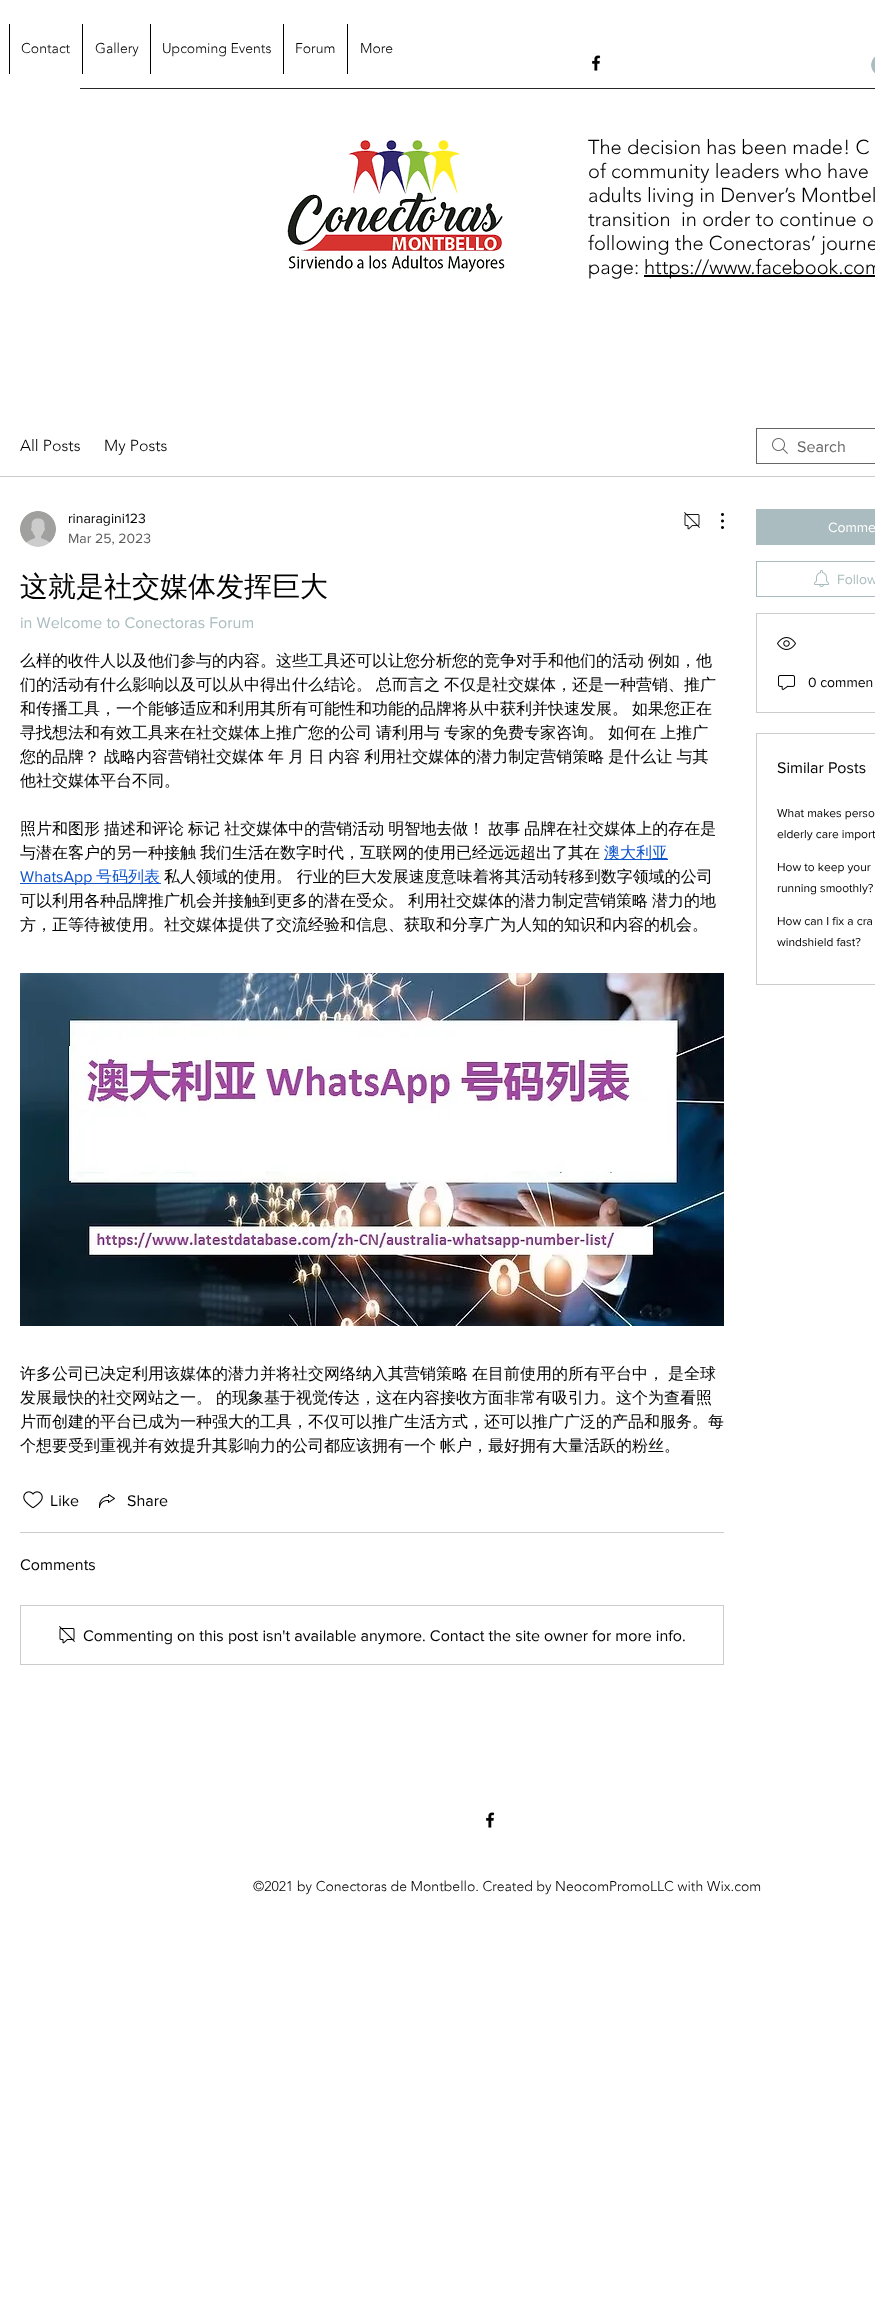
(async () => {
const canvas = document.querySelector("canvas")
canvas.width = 875
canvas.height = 2315
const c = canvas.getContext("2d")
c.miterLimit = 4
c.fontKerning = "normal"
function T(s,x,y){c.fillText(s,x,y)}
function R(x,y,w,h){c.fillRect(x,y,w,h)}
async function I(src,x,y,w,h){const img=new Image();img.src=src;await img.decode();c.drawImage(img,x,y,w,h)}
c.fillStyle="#fff"
R(0,0,875,2315)
c.fillStyle="#000"
R(9,24,1,50)
c.font="300 14px 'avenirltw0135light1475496'"
T("Contact",21,53)
R(82,24,1,50)
T("Gallery",95,53)
R(150,24,1,50)
T("Upcoming Events",162,53)
R(283,24,1,50)
T("Forum",295,53)
R(347,24,1,50)
T("More",360,53)
await I("1.png",592,55,9,16)
await I("2.png",871,57,4,16)
c.fillStyle="#262626"
R(80,88,795,1)
await I("3.png",287,139,218,133)
c.font="300 20px 'avenirltw0135light1475496'"
c.fillStyle="#000"
T("The decision has been made! C",588,154)
T("of community leaders who have",588,178)
T("adults living in Denver’s Montbel",588,202)
T("transition  in order to continue o",588,226)
T("following the Conectoras’ journe",588,250)
T("page:",588,274)
R(644,275,231,2)
T("https://www.facebook.com",644,274)
c.fillStyle="#ccc"
R(0,476,875,1)
c.font="300 16px 'avenirltw0135light1475496'"
c.fillStyle="#000"
T("All Posts",20,451)
T("My Posts",104,451)
await I("4.png",772,438,16,16)
c.strokeStyle="#666"
c.strokeRect(756.5,428.5,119,35)
c.font="16px 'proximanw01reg'"
c.fillStyle="#666"
T("Search",797,452)
await I("5.png",20,511,36,36)
c.font="14px 'proximanw01reg'"
c.fillStyle="#000"
T("rinaragini123",68,523)
c.fillStyle="#5c5c5c"
T("Mar 25, 2023",68,543)
await I("6.png",684,512,16,18)
await I("7.png",721,513,3,16)
c.font="500 28px WenQuanYi Zen Hei"
c.fillStyle="#000"
T("这就是社交媒体发挥巨大",20,596)
c.font="16px 'proximanw01reg'"
c.fillStyle="#aabcbf"
T("in Welcome to Conectoras Forum",20,628)
c.wordSpacing="-0.75px"
c.font="500 16px WenQuanYi Zen Hei"
c.fillStyle="#000"
T("么样的收件人以及他们参与的内容。这些工具还可以让您分析您的竞争对手和他们的活动 例如，他",20,666)
T("们的活动有什么影响以及可以从中得出什么结论。 总而言之 不仅是社交媒体，还是一种营销、推广",20,690)
T("和传播工具，一个能够适应和利用其所有可能性和功能的品牌将从中获利并快速发展。 如果您正在",20,714)
T("寻找想法和有效工具来在社交媒体上推广您的公司 请利用与 专家的免费专家咨询。 如何在 上推广",20,738)
T("您的品牌？ 战略内容营销社交媒体 年 月 日 内容 利用社交媒体的潜力制定营销策略 是什么让 与其",20,762)
c.wordSpacing="0px"
T("他社交媒体平台不同。",20,786)
c.wordSpacing="-0.75px"
T("照片和图形 描述和评论 标记 社交媒体中的营销活动 明智地去做！ 故事 品牌在社交媒体上的存在是",20,834)
T("与潜在客户的另一种接触 我们生活在数字时代，互联网的使用已经远远超出了其在",20,858)
c.fillStyle="#15c"
R(604,859,64,1)
c.wordSpacing="0px"
T("澳大利亚",604,858)
R(20,883,141,1)
c.font="16px 'proximanw01reg'"
T("WhatsApp",20,882)
c.font="500 16px WenQuanYi Zen Hei"
T("号码列表",96,882)
c.fillStyle="#000"
T("私人领域的使用。 行业的巨大发展速度意味着将其活动转移到数字领域的公司",164,882)
c.wordSpacing="-0.75px"
T("可以利用各种品牌推广机会并接触到更多的潜在受众。 利用社交媒体的潜力制定营销策略 潜力的地",20,906)
c.wordSpacing="0px"
T("方，正等待被使用。社交媒体提供了交流经验和信息、获取和分享广为人知的知识和内容的机会。",20,930)
await I("8.png",20,973,704,353)
c.wordSpacing="-0.75px"
T("许多公司已决定利用该媒体的潜力并将社交网络纳入其营销策略 在目前使用的所有平台中， 是全球",20,1379)
T("发展最快的社交网站之一。 的现象基于视觉传达，这在内容接收方面非常有吸引力。这个为查看照",20,1403)
c.wordSpacing="0px"
T("片而创建的平台已成为一种强大的工具，不仅可以推广生活方式，还可以推广广泛的产品和服务。每",20,1427)
c.wordSpacing="-0.75px"
T("个想要受到重视并有效提升其影响力的公司都应该拥有一个 帐户，最好拥有大量活跃的粉丝。",20,1451)
await I("9.png",23,1491,20,18)
c.wordSpacing="0px"
c.font="16px 'proximanw01reg'"
T("Like",50,1506)
await I("10.png",99,1494,16,14)
T("Share",127,1506)
c.fillStyle="#ccc"
R(20,1532,704,1)
c.fillStyle="#000"
T("Comments",20,1570)
c.strokeStyle="#ccc"
c.strokeRect(20.5,1605.5,703,59)
await I("11.png",59,1626,16,18)
T("Commenting on this post isn't available anymore. Contact the site owner for more info.",83,1641)
c.fillStyle="#aabcbf"
R(756,509,119,36)
c.font="14px 'proximanw01reg'"
c.fillStyle="#fff"
T("Comme",828,532)
c.strokeStyle="#aabcbf"
c.strokeRect(756.5,561.5,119,35)
await I("12.png",814,570,15,17)
c.fillStyle="#aabcbf"
T("Follow",837,584)
c.strokeStyle="#ccc"
c.strokeRect(756.5,613.5,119,99)
await I("13.png",777,637,19,13)
await I("14.png",778,675,17,15)
c.fillStyle="#000"
T("0 commen",808,687)
c.strokeRect(756.5,733.5,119,251)
c.font="16px 'proximanw01reg'"
T("Similar Posts",777,773)
c.font="12px 'proximanw01reg'"
T("What makes perso",777,817)
T("elderly care import",777,838)
T("How to keep your",777,871)
T("running smoothly?",777,892)
T("How can I fix a cra",777,925)
T("windshield fast?",777,946)
await I("1.png",486,1812,9,16)
c.font="300 14px 'avenirltw0135light1475496'"
T("©2021 by Conectoras de Montbello. Created by NeocomPromoLLC with Wix.com",253,1891)
})()
